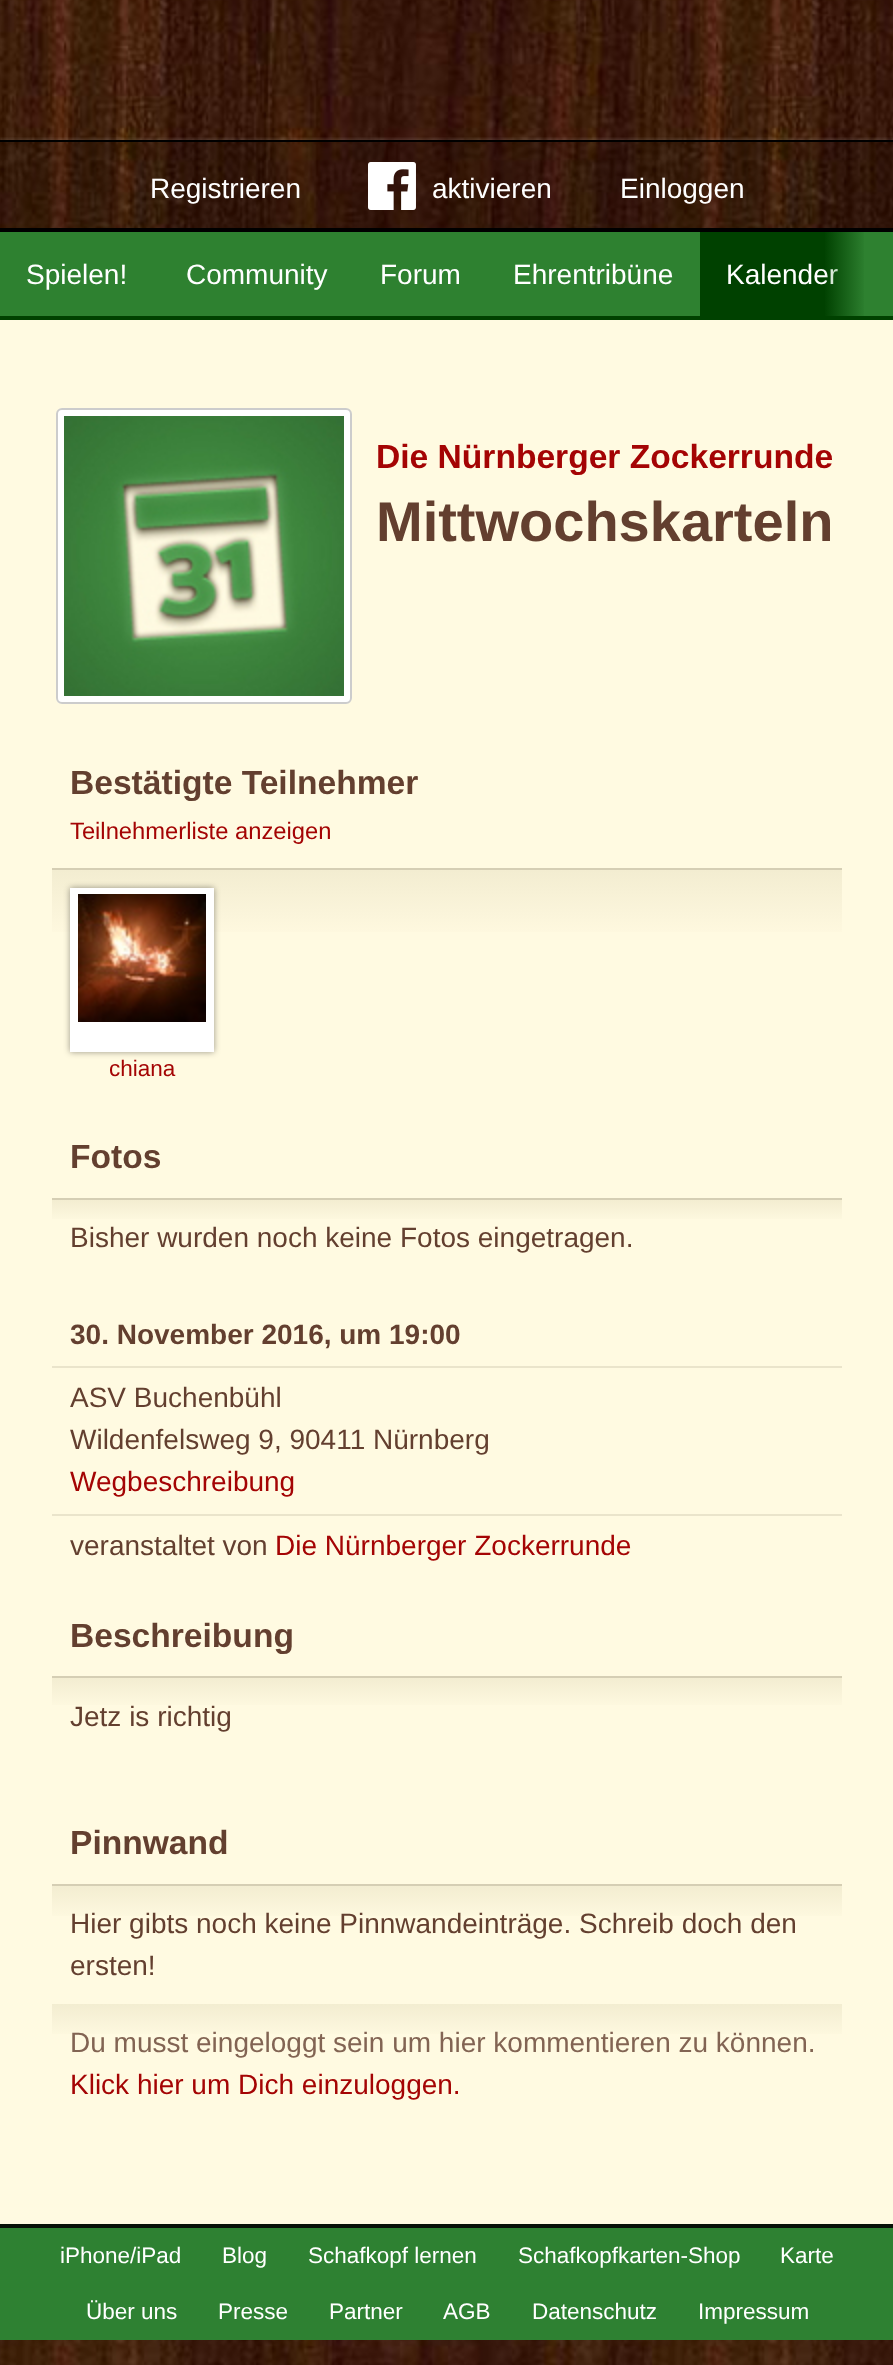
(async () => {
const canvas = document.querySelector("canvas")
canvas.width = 893
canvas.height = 2365
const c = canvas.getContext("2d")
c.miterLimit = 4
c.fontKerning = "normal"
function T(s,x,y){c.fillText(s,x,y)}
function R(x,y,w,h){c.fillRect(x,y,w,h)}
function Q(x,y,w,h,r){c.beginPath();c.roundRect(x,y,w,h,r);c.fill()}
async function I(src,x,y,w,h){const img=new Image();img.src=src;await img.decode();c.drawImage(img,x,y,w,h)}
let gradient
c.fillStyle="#fff"
R(0,0,893,2365)
await I("1.png",0,0,893,2365)
c.save()
c.beginPath()
c.rect(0,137,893,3)
c.clip()
c.fillStyle="#ffffff1a"
c.filter="blur(1px)"
c.beginPath()
c.rect(0,138,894,92)
c.fill()
c.filter="none"
c.restore()
c.fillStyle="#00000026"
R(0,142,893,86)
c.fillStyle="#000"
R(0,140,893,2)
R(0,228,893,4)
c.font="28px Liberation Sans"
c.fillStyle="#fff"
T("Registrieren",150,198)
await I("2.png",368,162,48,48)
T("aktivieren",432,198)
T("Einloggen",620,198)
c.fillStyle="#2e8130"
R(0,232,866,84)
c.fillStyle="#004100"
R(0,316,893,4)
c.fillStyle="#fff"
T("Spielen!",26,284)
T("Community",186,284)
T("Forum",380,284)
T("Ehrentribüne",513,284)
c.fillStyle="#004100"
R(700,232,164,84)
c.fillStyle="#fff"
T("Kalender",726,284)
gradient = c.createLinearGradient(824,274,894,274)
gradient.addColorStop(0,"#2e813000")
gradient.addColorStop(.6,"#2e8130")
c.fillStyle = gradient
R(825,232,68,84)
c.fillStyle="#fffae1"
R(0,320,893,1904)
c.fillStyle="#fff"
Q(56,408,296,296,6)
c.beginPath()
c.roundRect(57,409,294,294,5)
c.strokeStyle="#00000033"
c.lineWidth=2
c.stroke()
await I("3.png",64,416,280,280)
c.font="bold 33.6px Liberation Sans"
c.fillStyle="#a40404"
T("Die Nürnberger Zockerrunde",376,468)
c.font="bold 56px Liberation Sans"
c.fillStyle="#633f2f"
T("Mittwochskarteln",376,541)
c.fillStyle="#d5ceb4"
R(52,868,790,2)
c.font="bold 33.6px Liberation Sans"
c.fillStyle="#633f2f"
T("Bestätigte Teilnehmer",70,794)
c.font="23.75px Liberation Sans"
c.fillStyle="#a40404"
T("Teilnehmerliste anzeigen",70,839)
gradient = c.createLinearGradient(447,870,447,1098)
gradient.addColorStop(0,"#f3edd1")
gradient.addColorStop(.3,"#fff9e0")
c.fillStyle = gradient
R(52,870,790,62)
c.fillStyle="#00000066"
c.filter="blur(3px)"
c.beginPath()
c.rect(70,888,144,164)
c.fill()
c.filter="none"
c.fillStyle="#fff"
R(70,888,144,164)
await I("4.png",78,894,128,128)
c.font="22.5px Liberation Sans"
c.fillStyle="#a40404"
T("chiana",109,1076)
c.fillStyle="#d5ceb4"
R(52,1198,790,2)
c.font="bold 33.6px Liberation Sans"
c.fillStyle="#633f2f"
T("Fotos",70,1168)
gradient = c.createLinearGradient(447,1200,447,1276)
gradient.addColorStop(0,"#f3edd1")
gradient.addColorStop(.3,"#fffae1")
c.fillStyle = gradient
R(52,1200,790,19)
c.font="28px Liberation Sans"
c.fillStyle="#633f2f"
T("Bisher wurden noch keine Fotos eingetragen.",70,1247)
c.fillStyle="#eae4cb"
R(52,1366,790,2)
c.font="bold 28px Liberation Sans"
c.fillStyle="#633f2f"
T("30. November 2016, um 19:00",70,1344)
c.fillStyle="#eae4cb"
R(52,1514,790,2)
c.font="28px Liberation Sans"
c.fillStyle="#633f2f"
T("ASV Buchenbühl",70,1407)
T("Wildenfelsweg 9, 90411 Nürnberg",70,1449)
c.fillStyle="#a40404"
T("Wegbeschreibung",70,1491)
c.fillStyle="#633f2f"
T("veranstaltet von",70,1555)
c.fillStyle="#a40404"
T("Die Nürnberger Zockerrunde",275,1555)
c.fillStyle="#d5ceb4"
R(52,1676,790,2)
c.font="bold 33.6px Liberation Sans"
c.fillStyle="#633f2f"
T("Beschreibung",70,1647)
gradient = c.createLinearGradient(447,1678,447,1784)
gradient.addColorStop(0,"#f3edd1")
gradient.addColorStop(.3,"#fffae1")
c.fillStyle = gradient
R(52,1678,790,27)
c.font="28px Liberation Sans"
c.fillStyle="#633f2f"
T("Jetz is richtig",70,1726)
c.fillStyle="#d5ceb4"
R(52,1884,790,2)
c.font="bold 33.6px Liberation Sans"
c.fillStyle="#633f2f"
T("Pinnwand",70,1854)
gradient = c.createLinearGradient(447,1886,447,2004)
gradient.addColorStop(0,"#f3edd1")
gradient.addColorStop(.3,"#fffae1")
c.fillStyle = gradient
R(52,1886,790,30)
c.font="28px Liberation Sans"
c.fillStyle="#633f2f"
T("Hier gibts noch keine Pinnwandeinträge. Schreib doch den",70,1933)
T("ersten!",70,1975)
gradient = c.createLinearGradient(447,2004,447,2124)
gradient.addColorStop(0,"#f3edd1")
gradient.addColorStop(.3,"#fffae1")
c.fillStyle = gradient
R(52,2004,790,30)
c.fillStyle="#826453"
T("Du musst eingeloggt sein um hier kommentieren zu können.",70,2052)
c.fillStyle="#a40404"
T("Klick hier um Dich einzuloggen.",70,2094)
c.fillStyle="#2e8132"
R(0,2228,893,112)
c.fillStyle="#061006"
R(0,2224,893,4)
c.font="22.5px Liberation Sans"
c.fillStyle="#fff"
T("iPhone/iPad",60,2263)
T("Blog",222,2263)
T("Schafkopf lernen",308,2263)
T("Schafkopfkarten-Shop",518,2263)
T("Karte",780,2263)
T("Über uns",86,2319)
T("Presse",218,2319)
T("Partner",329,2319)
T("AGB",443,2319)
T("Datenschutz",532,2319)
T("Impressum",698,2319)
})()
